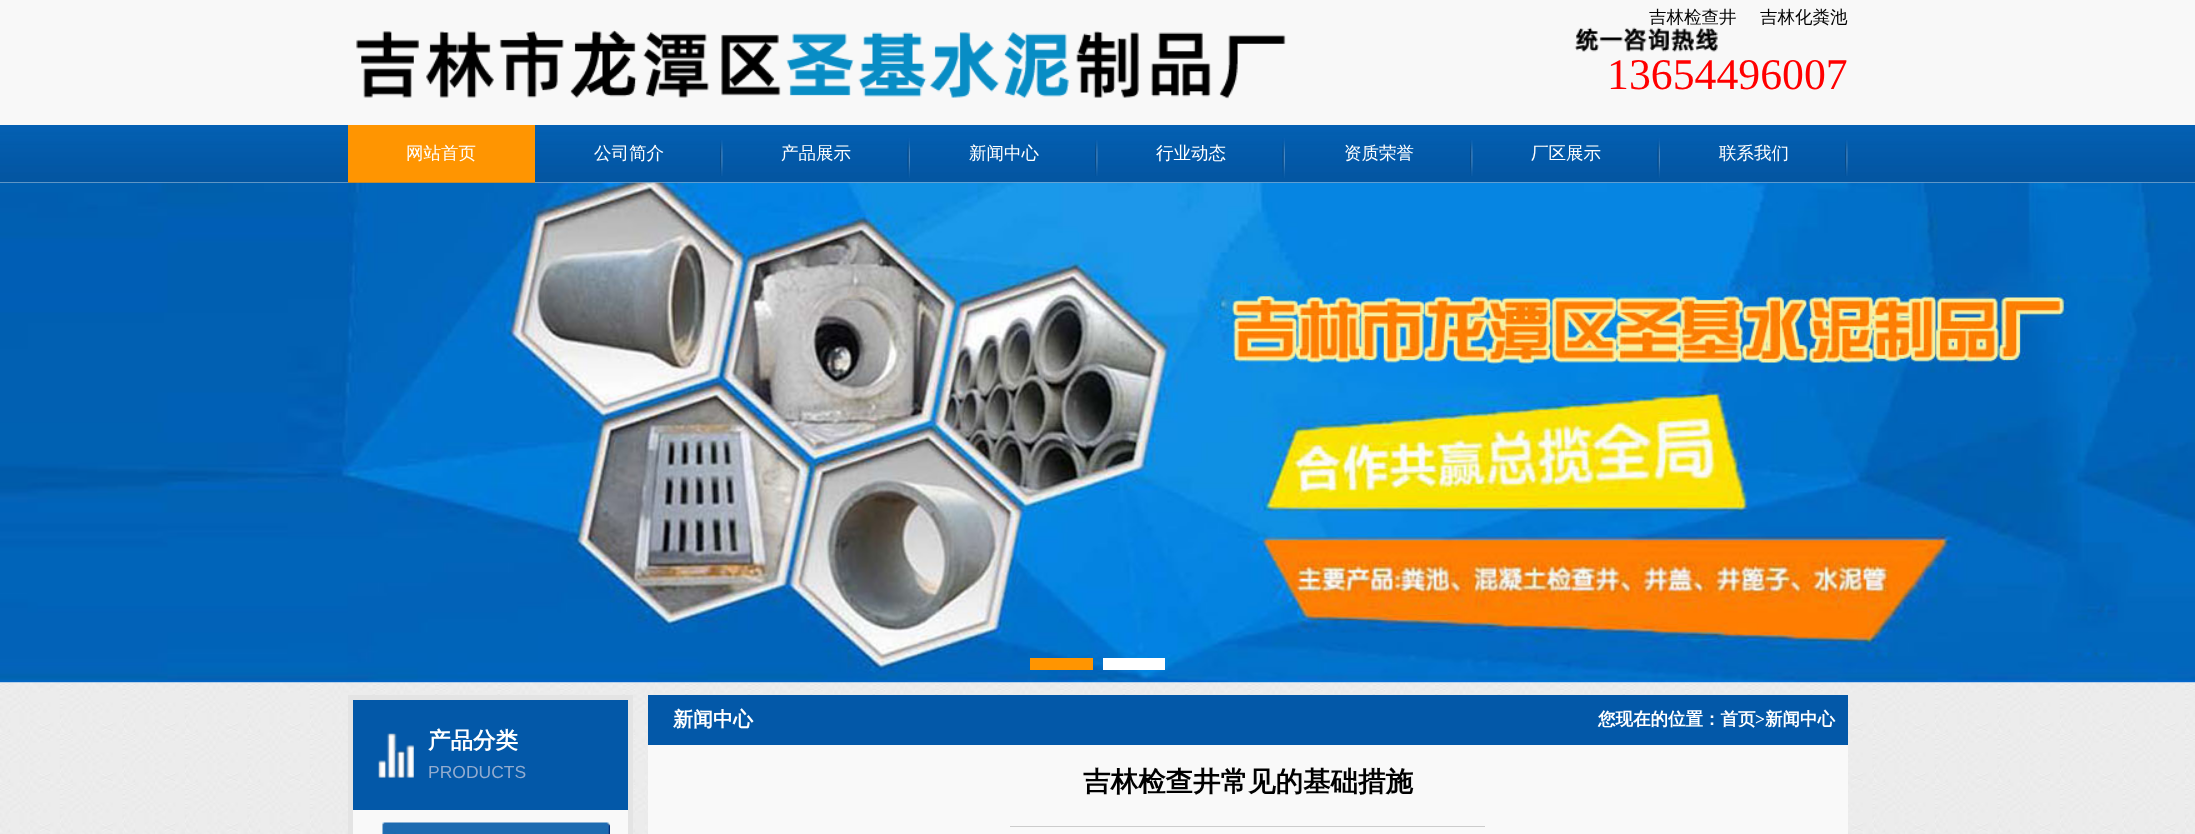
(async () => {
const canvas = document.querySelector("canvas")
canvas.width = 2195
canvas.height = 834
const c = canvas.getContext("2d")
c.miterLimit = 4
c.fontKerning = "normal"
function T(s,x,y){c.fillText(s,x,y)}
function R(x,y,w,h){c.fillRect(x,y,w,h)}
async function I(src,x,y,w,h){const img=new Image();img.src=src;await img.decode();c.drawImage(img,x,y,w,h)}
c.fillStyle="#f8f8f8"
R(0,0,2195,834)
c.font="500 17.5px WenQuanYi Zen Hei"
c.fillStyle="#000"
T("吉林检查井",1649,23)
T("吉林化粪池",1760,23)
await I("1.png",356,27,1362,72)
c.font="43.75px Liberation Serif"
c.fillStyle="#f00"
T("13654496007",1607,89)
await I("2.png",0,125,2195,58)
c.fillStyle="#ff9501"
R(348,125,187,58)
c.font="500 17.5px WenQuanYi Zen Hei"
c.fillStyle="#fff"
T("网站首页",406,159)
await I("3.png",720,140,3,36)
T("公司简介",594,159)
await I("4.png",907,138,3,40)
T("产品展示",781,159)
await I("3.png",1095,140,3,36)
T("新闻中心",969,159)
await I("5.png",1282,138,3,40)
T("行业动态",1156,159)
await I("3.png",1470,140,3,36)
T("资质荣誉",1344,159)
await I("4.png",1657,138,3,40)
T("厂区展示",1531,159)
await I("3.png",1845,140,3,36)
T("联系我们",1719,159)
await I("7.png",0,682,2195,152)
await I("6.png",0,182,2195,501)
c.fillStyle="#ff9501"
R(1030,658,63,12)
c.fillStyle="#fff"
R(1103,658,62,12)
c.fillStyle="#f9f9f9"
R(353,810,275,24)
c.strokeStyle="#e4e4e4"
c.lineWidth=5
c.strokeRect(350.5,697.5,280,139)
c.fillStyle="#0358a8"
R(353,700,275,110)
await I("8.png",378,733,36,45)
c.font="bold 22.5px WenQuanYi Zen Hei"
c.fillStyle="#fff"
T("产品分类",428,748)
c.font="17.5px Liberation Sans"
c.fillStyle="#93accf"
T("PRODUCTS",428,778)
await I("9.png",382,822,228,12)
c.fillStyle="#0358a8"
R(648,695,1200,50)
c.font="bold 20px WenQuanYi Zen Hei"
c.fillStyle="#fff"
T("新闻中心",673,726)
c.font="bold 17.5px WenQuanYi Zen Hei"
T("您现在的位置：首页",1598,725)
c.font="bold 17.5px Liberation Serif"
T(">",1755,725)
c.font="bold 17.5px WenQuanYi Zen Hei"
T("新闻中心",1765,725)
c.fillStyle="#f9f9f9"
R(648,745,1200,89)
c.font="bold 27.5px WenQuanYi Zen Hei"
c.fillStyle="#000"
T("吉林检查井常见的基础措施",1083,791)
c.fillStyle="#ccc"
R(1010,826,475,1)
})()
